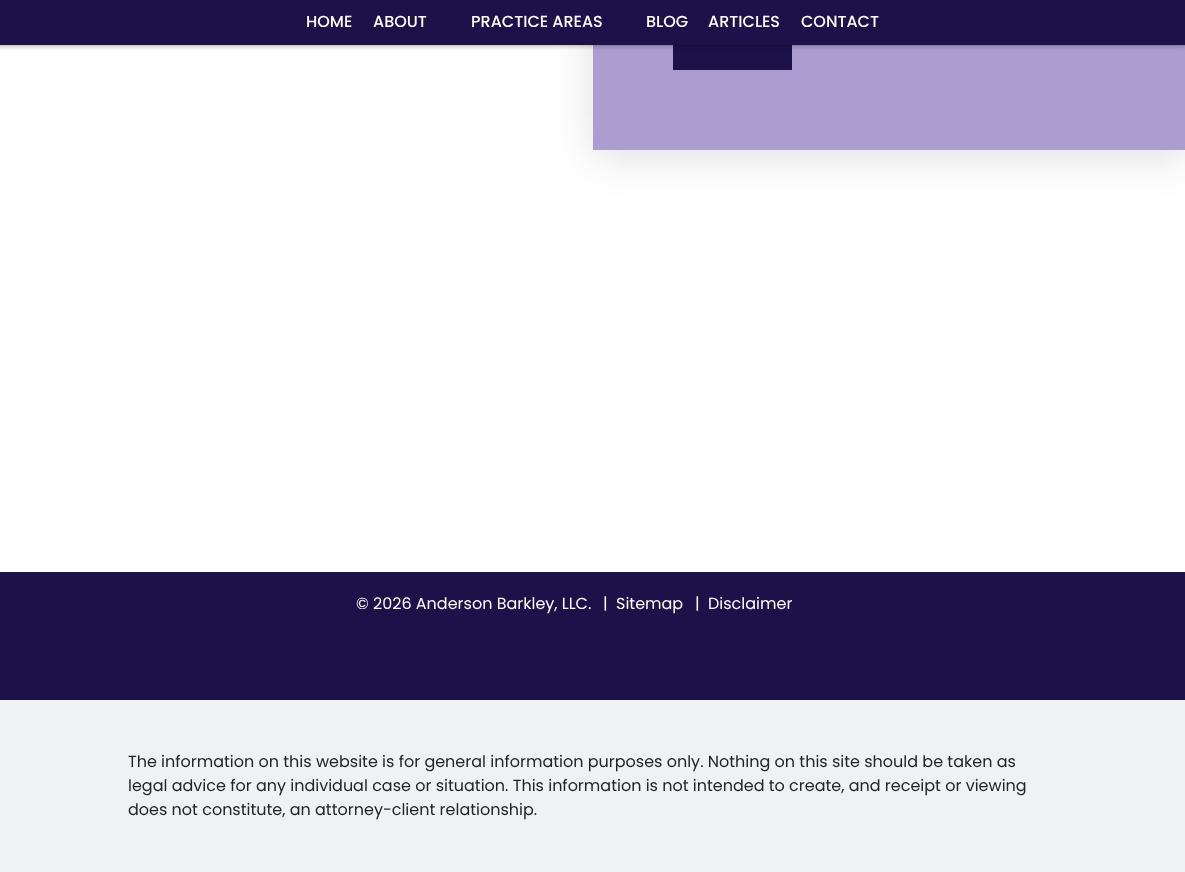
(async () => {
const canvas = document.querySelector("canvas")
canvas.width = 1185
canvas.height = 872
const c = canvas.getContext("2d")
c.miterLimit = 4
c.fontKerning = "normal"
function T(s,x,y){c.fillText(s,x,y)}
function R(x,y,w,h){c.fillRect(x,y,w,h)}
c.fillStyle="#fff"
R(0,0,1185,872)
c.fillStyle="#00000026"
c.filter="blur(22.5px)"
c.beginPath()
c.rect(596,-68,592,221)
c.fill()
c.filter="none"
c.fillStyle="#ab9dd0"
R(593,45,592,105)
c.fillStyle="#1c1149"
R(673,45,119,25)
c.fillStyle="#00000099"
c.filter="blur(3px)"
c.beginPath()
c.rect(-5,-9,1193,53)
c.fill()
c.filter="none"
c.fillStyle="#1c1149"
R(0,0,1185,45)
c.font="500 16px Poppins"
c.fillStyle="#fff"
T("HOME",306,27)
T("ABOUT",373,27)
T("PRACTICE AREAS",471,27)
T("BLOG",646,27)
T("ARTICLES",708,27)
T("CONTACT",801,27)
c.fillStyle="#1c1149"
R(0,572,1185,128)
c.font="16px Poppins"
c.fillStyle="#fff"
T("© 2026 Anderson Barkley, LLC.",356,609)
T("|",603,609)
T("Sitemap",616,609)
T("|",695,609)
T("Disclaimer",708,609)
c.fillStyle="#eff1f2"
R(0,700,1185,172)
c.fillStyle="#212529"
T("The information on this website is for general information purposes only. Nothing on this site should be taken as",128,767)
T("legal advice for any individual case or situation. This information is not intended to create, and receipt or viewing",128,791)
T("does not constitute, an attorney-client relationship.",128,815)
})()
